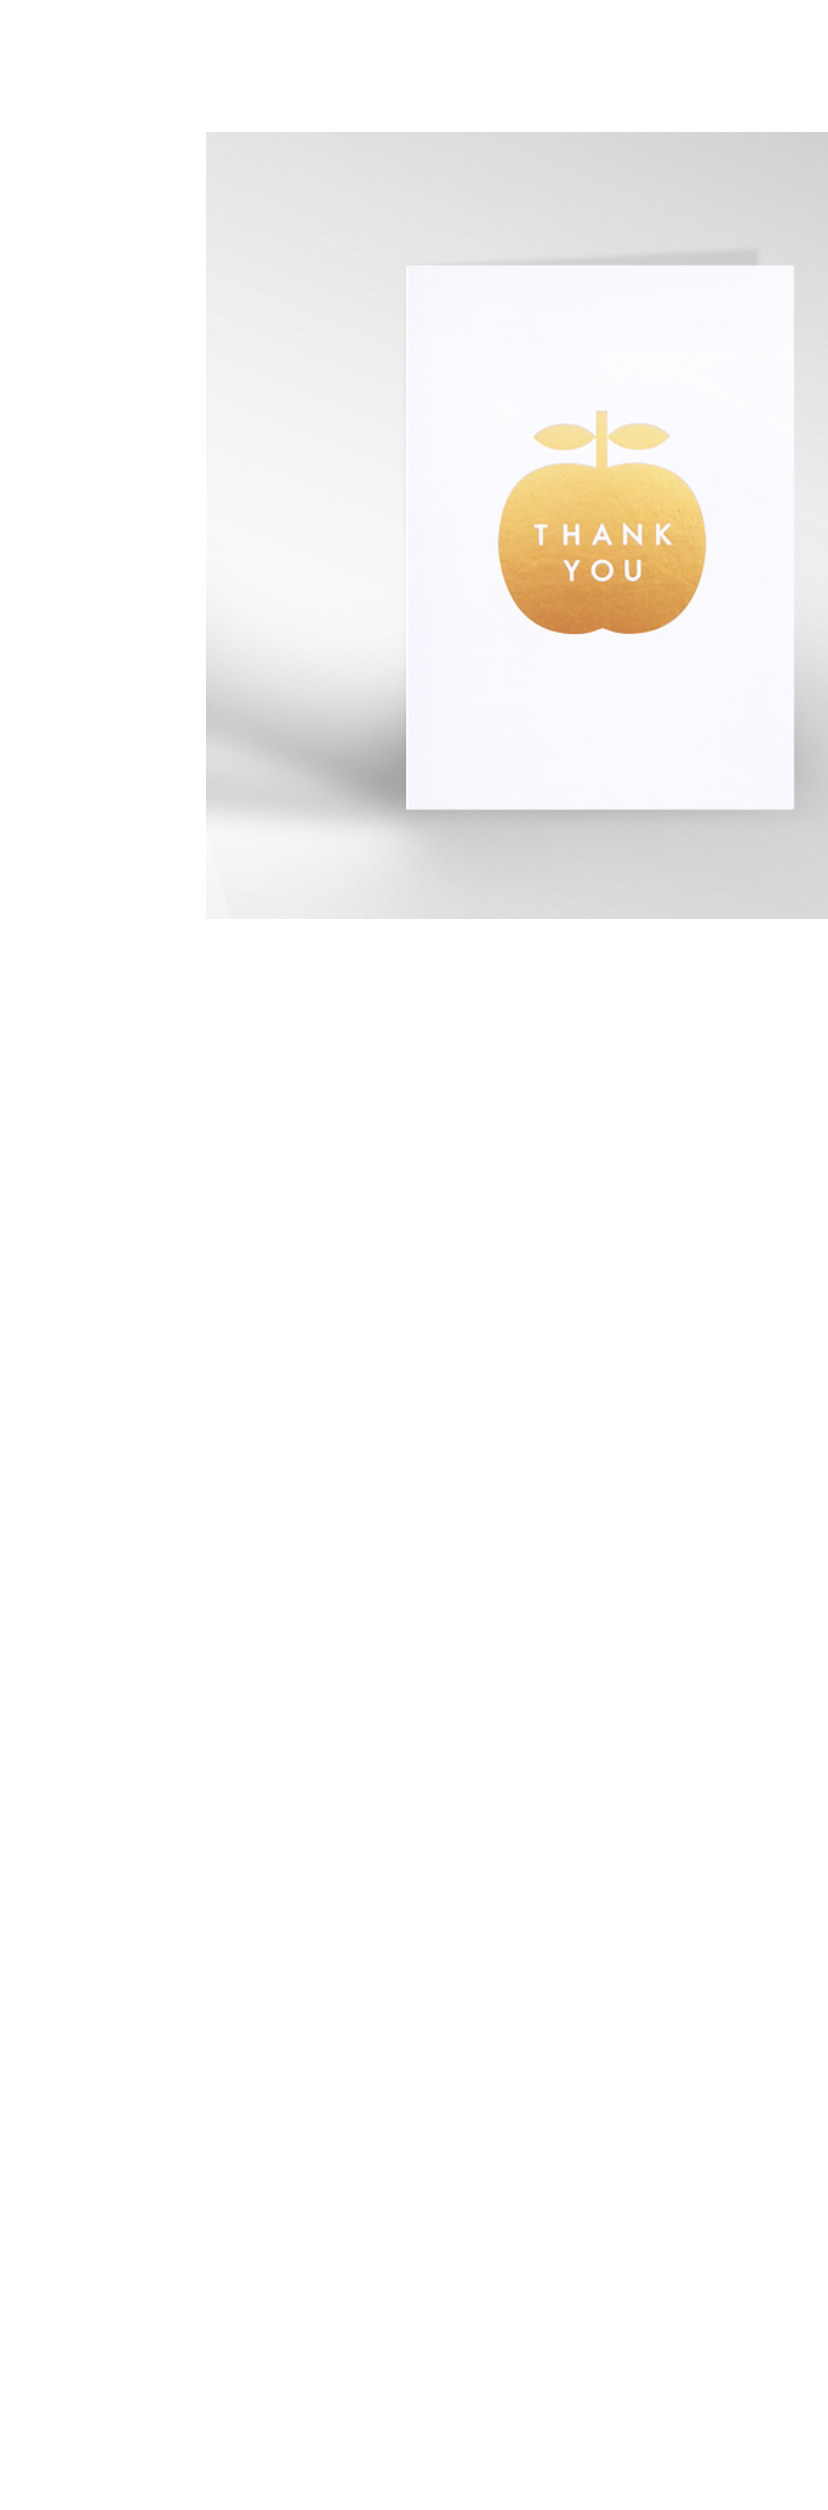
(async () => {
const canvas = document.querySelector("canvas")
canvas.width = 828
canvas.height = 2510
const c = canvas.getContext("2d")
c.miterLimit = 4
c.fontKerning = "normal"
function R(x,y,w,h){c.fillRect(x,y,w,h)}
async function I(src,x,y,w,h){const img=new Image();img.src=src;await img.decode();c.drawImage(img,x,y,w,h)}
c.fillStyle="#fff"
R(0,0,828,2510)
await I("1.png",206,132,622,787)
})()
